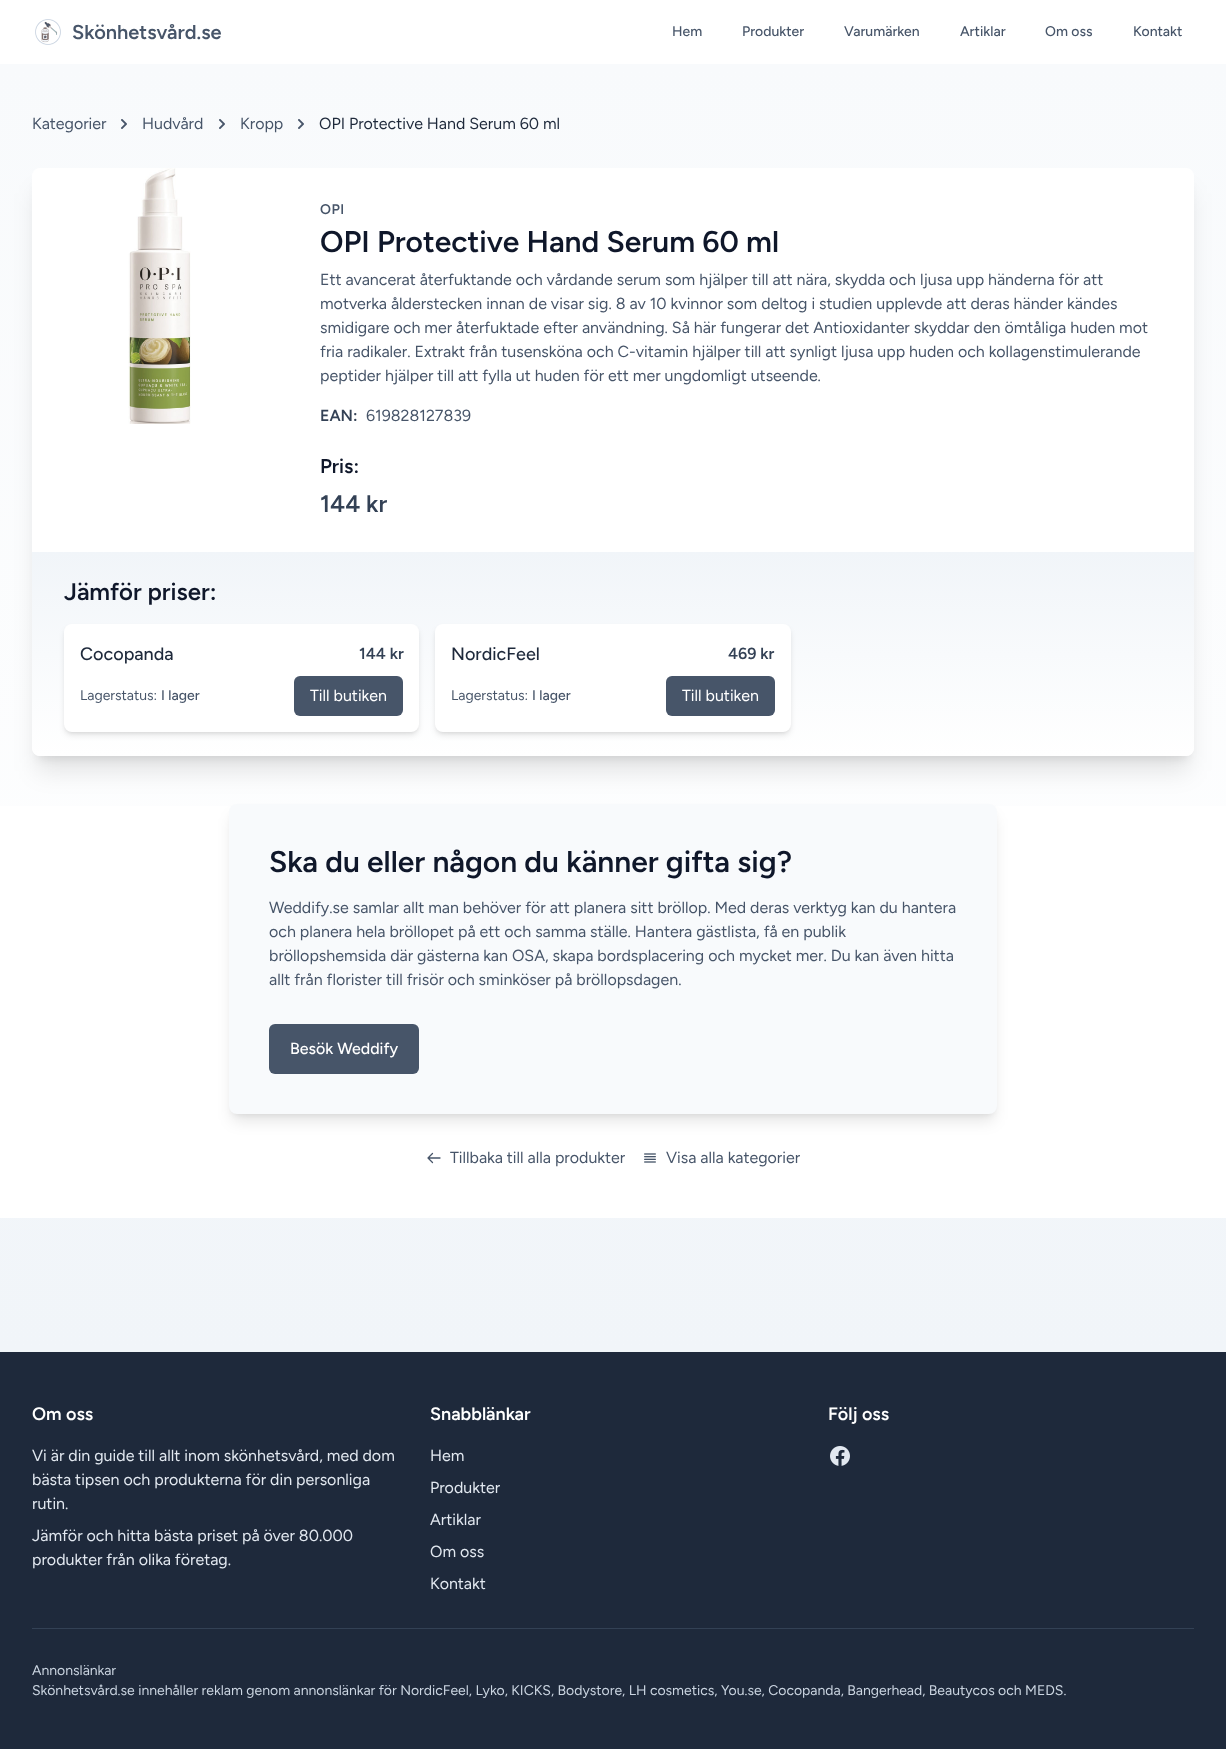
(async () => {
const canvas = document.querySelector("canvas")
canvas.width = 1226
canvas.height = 1749
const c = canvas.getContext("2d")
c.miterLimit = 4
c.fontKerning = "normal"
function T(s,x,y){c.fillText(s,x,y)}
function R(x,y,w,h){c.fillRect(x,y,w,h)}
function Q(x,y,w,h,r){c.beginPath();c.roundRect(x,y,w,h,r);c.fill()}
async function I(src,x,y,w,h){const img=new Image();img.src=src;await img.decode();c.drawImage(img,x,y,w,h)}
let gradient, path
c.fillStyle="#fff"
R(0,0,1226,1749)
gradient = c.createLinearGradient(613,0,613,1352)
gradient.addColorStop(0,"#f8fafc")
gradient.addColorStop(1,"#f1f5f9")
c.fillStyle = gradient
R(0,1218,1226,134)
await I("1.png",35,19,26,26)
c.font="600 20px Figtree"
c.fillStyle="#475569"
T("Skönhetsvård.se",72,39)
c.font="300 14px Figtree"
T("Hem",672,36)
T("Produkter",742,36)
T("Varumärken",844,36)
T("Artiklar",960,36)
T("Om oss",1045,36)
T("Kontakt",1133,36)
gradient = c.createLinearGradient(613,64,613,1218)
gradient.addColorStop(0,"#f8fafc")
gradient.addColorStop(1,"#fff")
c.fillStyle = gradient
R(0,64,1226,742)
c.font="300 16px 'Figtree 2'"
c.fillStyle="#475569"
T("Kategorier",32,129)
await I("2.png",121,119,6,10)
T("Hudvård",142,129)
await I("2.png",219,119,6,10)
T("Kropp",240,129)
await I("2.png",298,119,6,10)
c.fillStyle="#1e293b"
T("OPI Protective Hand Serum 60 ml",319,129)
c.fillStyle="#0000001a"
c.filter="blur(5px)"
c.beginPath()
c.roundRect(38,182,1150,576,2)
c.fill()
c.filter="none"
c.filter="blur(12.5px)"
c.beginPath()
c.roundRect(37,193,1152,578,3)
c.fill()
c.filter="none"
c.fillStyle="#fff"
Q(32,168,1162,588,8)
await I("3.png",128,168,63,256)
c.letterSpacing="0.5px"
c.font="600 14px Figtree"
c.fillStyle="#475569"
T("OPI",320,214)
c.letterSpacing="0px"
c.font="600 30px Figtree"
c.fillStyle="#0f172a"
T("OPI Protective Hand Serum 60 ml",320,252)
c.font="300 16px 'Figtree 2'"
c.fillStyle="#475569"
T("Ett avancerat återfuktande och vårdande serum som hjälper till att nära, skydda och ljusa upp händerna för att",320,285)
T("motverka ålderstecken innan de visar sig. 8 av 10 kvinnor som deltog i studien upplevde att deras händer kändes",320,309)
T("smidigare och mer återfuktade efter användning. Så här fungerar det Antioxidanter skyddar den ömtåliga huden mot",320,333)
T("fria radikaler. Extrakt från tusensköna och C-vitamin hjälper till att synligt ljusa upp huden och kollagenstimulerande",320,357)
T("peptider hjälper till att fylla ut huden för ett mer ungdomligt utseende.",320,381)
c.font="600 16px Figtree"
c.fillStyle="#334155"
T("EAN:",320,421)
c.font="300 16px 'Figtree 2'"
c.fillStyle="#475569"
T("619828127839",366,421)
c.font="600 20px Figtree"
c.fillStyle="#0f172a"
T("Pris:",320,473)
c.font="600 24px Figtree"
c.fillStyle="#334155"
T("144 kr",320,512)
gradient = c.createLinearGradient(613,552,613,756)
gradient.addColorStop(0,"#f1f5f9")
gradient.addColorStop(1,"#fff")
c.fillStyle = gradient
c.beginPath()
c.roundRect(32,552,1162,204,[0,0,8,8])
c.fill()
c.fillStyle="#0f172a"
T("Jämför priser:",64,600)
c.fillStyle="#0000001a"
c.filter="blur(2px)"
c.beginPath()
c.roundRect(66,628,351,104,6)
c.fill()
c.filter="none"
c.filter="blur(3px)"
c.beginPath()
c.roundRect(65,629,353,106,7)
c.fill()
c.filter="none"
c.fillStyle="#fff"
Q(64,624,355,108,8)
c.font="300 18px Figtree"
c.fillStyle="#1e293b"
T("Cocopanda",80,660)
c.font="600 16px Figtree"
c.fillStyle="#334155"
T("144 kr",359,659)
c.font="300 14px 'Figtree 2'"
c.fillStyle="#475569"
T("Lagerstatus:",80,700)
c.font="300 14px Figtree"
T("I lager",161,700)
Q(294,676,109,40,6)
c.font="300 16px 'Figtree 2'"
c.fillStyle="#fff"
T("Till butiken",310,701)
c.fillStyle="#0000001a"
c.filter="blur(2px)"
c.beginPath()
c.roundRect(437,628,352,104,6)
c.fill()
c.filter="none"
c.filter="blur(3px)"
c.beginPath()
c.roundRect(436,629,354,106,7)
c.fill()
c.filter="none"
c.fillStyle="#fff"
Q(435,624,356,108,8)
c.font="300 18px Figtree"
c.fillStyle="#1e293b"
T("NordicFeel",451,660)
c.font="600 16px Figtree"
c.fillStyle="#334155"
T("469 kr",728,659)
c.font="300 14px 'Figtree 2'"
c.fillStyle="#475569"
T("Lagerstatus:",451,700)
c.font="300 14px Figtree"
T("I lager",532,700)
Q(666,676,109,40,6)
c.font="300 16px 'Figtree 2'"
c.fillStyle="#fff"
T("Till butiken",682,701)
c.fillStyle="#0000001a"
c.filter="blur(3px)"
c.beginPath()
c.roundRect(233,812,760,302,4)
c.fill()
c.filter="none"
c.filter="blur(7.5px)"
c.beginPath()
c.roundRect(232,817,762,304,5)
c.fill()
c.filter="none"
c.fillStyle="#f8fafc"
Q(229,804,768,310,8)
c.font="600 30px Figtree"
c.fillStyle="#0f172a"
T("Ska du eller någon du känner gifta sig?",269,872)
c.font="300 16px 'Figtree 2'"
c.fillStyle="#475569"
T("Weddify.se samlar allt man behöver för att planera sitt bröllop. Med deras verktyg kan du hantera",269,913)
T("och planera hela bröllopet på ett och samma ställe. Hantera gästlista, få en publik",269,937)
T("bröllopshemsida där gästerna kan OSA, skapa bordsplacering och mycket mer. Du kan även hitta",269,961)
T("allt från florister till frisör och sminköser på bröllopsdagen.",269,985)
Q(269,1024,150,50,6)
c.font="300 16px Figtree"
c.fillStyle="#fff"
T("Besök Weddify",290,1054)
path = new Path2D("M432.5 1162.5l-4.5-4.5m0 0l4.5-4.5m-4.5 4.5h12")
c.strokeStyle="#475569"
c.lineWidth=1.3
c.lineCap="round"
c.lineJoin="round"
c.stroke(path)
c.font="300 16px 'Figtree 2'"
c.fillStyle="#475569"
T("Tillbaka till alla produkter",450,1163)
await I("4.png",644,1153,12,10)
T("Visa alla kategorier",666,1163)
c.fillStyle="#1e293b"
R(0,1352,1226,397)
c.font="600 18px Figtree"
c.fillStyle="#fff"
T("Om oss",32,1420)
c.font="300 16px 'Figtree 2'"
c.fillStyle="#e2e8f0"
T("Vi är din guide till allt inom skönhetsvård, med dom",32,1461)
T("bästa tipsen och produkterna för din personliga",32,1485)
T("rutin.",32,1509)
T("Jämför och hitta bästa priset på över 80.000",32,1541)
T("produkter från olika företag.",32,1565)
c.font="600 18px Figtree"
c.fillStyle="#fff"
T("Snabblänkar",430,1420)
c.font="300 16px 'Figtree 2'"
c.fillStyle="#e2e8f0"
T("Hem",430,1461)
T("Produkter",430,1493)
T("Artiklar",430,1525)
T("Om oss",430,1557)
T("Kontakt",430,1589)
c.font="600 18px Figtree"
c.fillStyle="#fff"
T("Följ oss",828,1420)
await I("5.png",830,1446,20,20)
c.fillStyle="#334155"
R(32,1628,1162,1)
c.font="300 14px 'Figtree 2'"
c.fillStyle="#cbd5e1"
T("Annonslänkar",32,1675)
T("Skönhetsvård.se innehåller reklam genom annonslänkar för NordicFeel, Lyko, KICKS, Bodystore, LH cosmetics, You.se, Cocopanda, Bangerhead, Beautycos och MEDS.",32,1695)
})()
